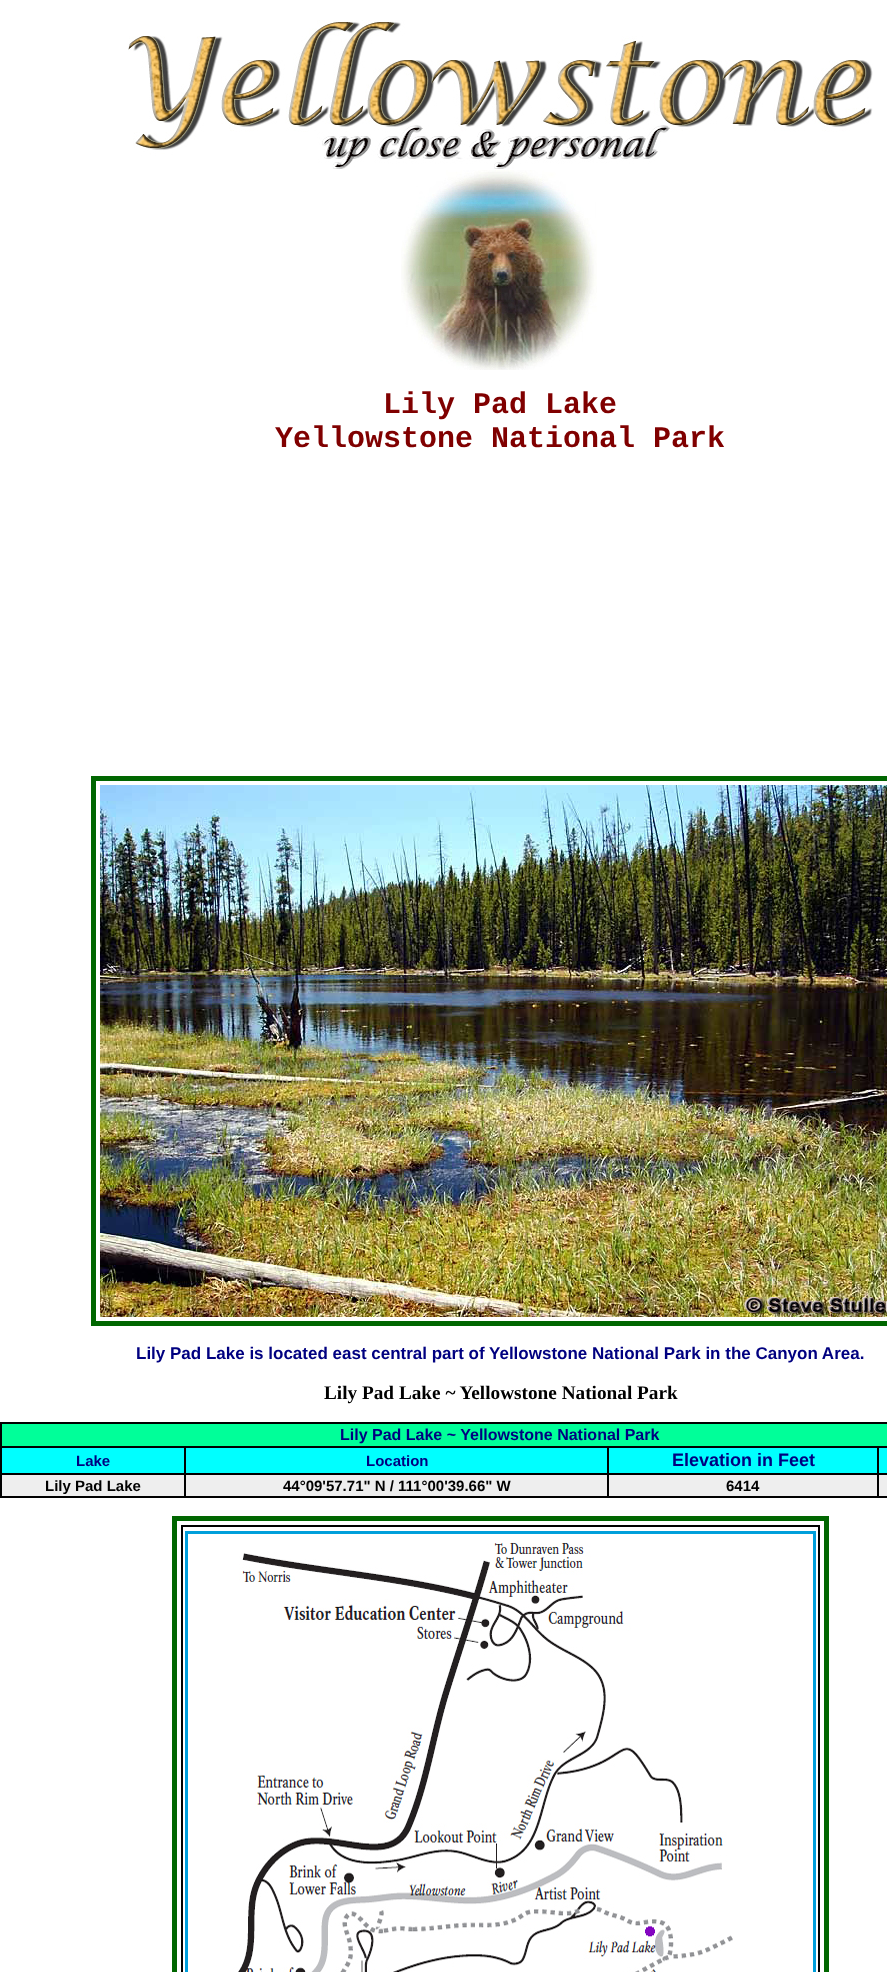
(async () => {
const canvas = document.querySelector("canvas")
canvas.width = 887
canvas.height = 1972
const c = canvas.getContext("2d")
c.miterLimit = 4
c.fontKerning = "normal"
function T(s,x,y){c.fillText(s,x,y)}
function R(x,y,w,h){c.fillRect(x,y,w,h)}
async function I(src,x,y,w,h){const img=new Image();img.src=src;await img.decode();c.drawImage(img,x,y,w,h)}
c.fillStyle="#fff"
R(0,0,887,1972)
await I("1.png",128,20,745,149)
await I("2.png",401,170,196,200)
c.font="bold 30px Liberation Mono"
c.fillStyle="#800000"
T("Lily Pad Lake",383,413)
T("Yellowstone National Park",275,447)
c.fillStyle="#060"
R(91,776,796,5)
R(91,1321,796,5)
R(91,776,5,550)
await I("3.png",100,785,787,532)
c.font="bold 17px Liberation Sans"
c.fillStyle="#000080"
T("Lily Pad Lake is located east central part of Yellowstone National Park in the Canyon Area.",136,1359)
c.font="bold 19.25px Liberation Serif"
c.fillStyle="#000"
T("Lily Pad Lake ~ Yellowstone National Park",324,1399)
R(0,1422,887,2)
R(0,1496,887,2)
R(0,1422,2,76)
c.fillStyle="#0f9"
R(2,1424,885,22)
c.font="bold 16px Liberation Sans"
c.fillStyle="#000080"
T("Lily Pad Lake ~ Yellowstone National Park",340,1440)
c.fillStyle="#0ff"
R(2,1448,182,25)
c.fillStyle="#000"
R(877,1446,10,2)
R(877,1473,10,2)
R(877,1473,2,25)
R(607,1473,272,2)
R(877,1446,2,29)
R(607,1446,272,2)
R(607,1473,2,25)
R(184,1473,425,2)
R(607,1446,2,29)
R(184,1446,425,2)
R(184,1473,2,25)
R(0,1473,186,2)
R(184,1446,2,29)
R(0,1446,186,2)
c.font="bold 15px Liberation Sans"
c.fillStyle="#000080"
T("Lake",76,1466)
c.fillStyle="#0ff"
R(186,1448,421,25)
c.fillStyle="#000080"
T("Location",366,1466)
c.fillStyle="#0ff"
R(609,1448,268,25)
c.font="bold 18px Liberation Sans"
c.fillStyle="#000080"
T("Elevation in Feet",672,1466)
c.fillStyle="#0ff"
R(879,1448,8,25)
c.fillStyle="#eee"
R(2,1475,182,21)
c.font="bold 15px Liberation Sans"
c.fillStyle="#000"
T("Lily Pad Lake",45,1491)
c.fillStyle="#eee"
R(186,1475,421,21)
c.fillStyle="#000"
T("44°09'57.71\" N / 111°00'39.66\" W",283,1491)
c.fillStyle="#eee"
R(609,1475,268,21)
c.fillStyle="#000"
T("6414",726,1491)
c.fillStyle="#eee"
R(879,1475,8,21)
c.fillStyle="#060"
R(172,1516,657,5)
R(824,1516,5,456)
R(172,1516,5,456)
c.strokeStyle="#000"
c.lineWidth=2
c.strokeRect(182,1526,637,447)
await I("4.png",185,1531,631,441)
})()
